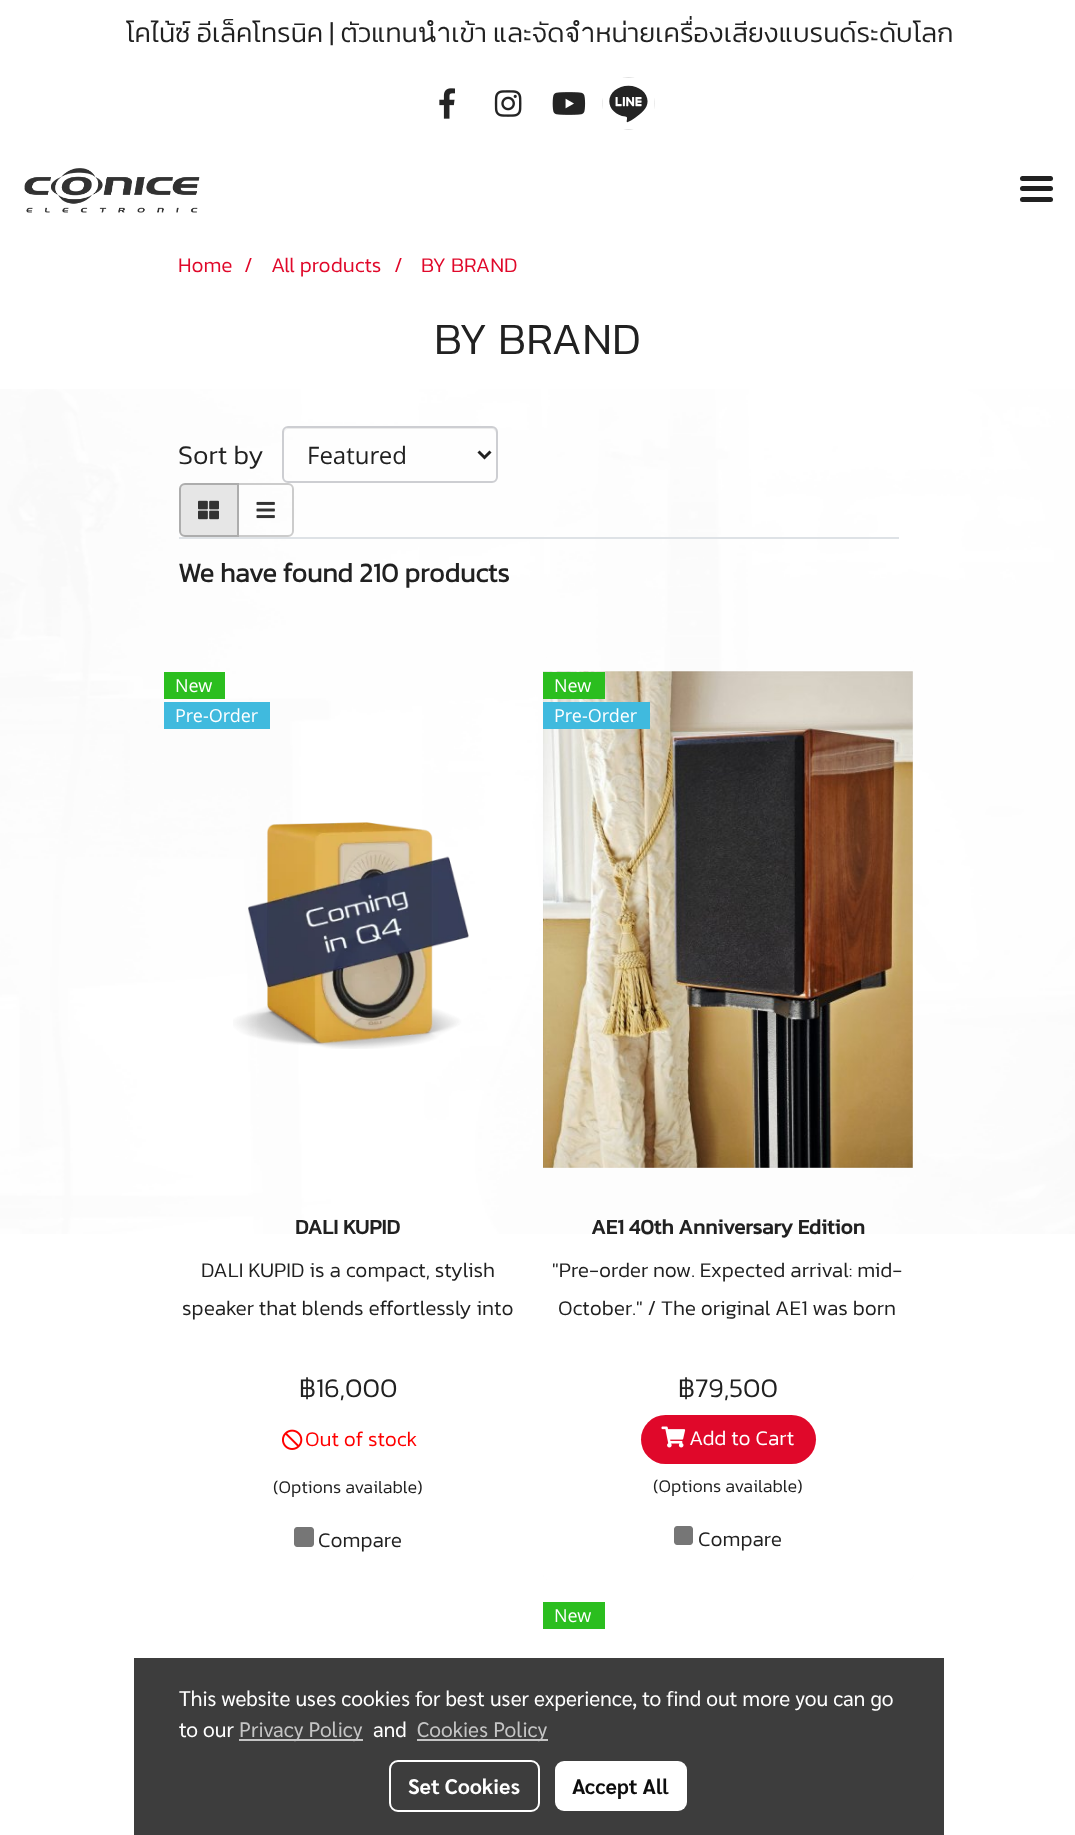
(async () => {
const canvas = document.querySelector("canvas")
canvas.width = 1075
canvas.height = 1835
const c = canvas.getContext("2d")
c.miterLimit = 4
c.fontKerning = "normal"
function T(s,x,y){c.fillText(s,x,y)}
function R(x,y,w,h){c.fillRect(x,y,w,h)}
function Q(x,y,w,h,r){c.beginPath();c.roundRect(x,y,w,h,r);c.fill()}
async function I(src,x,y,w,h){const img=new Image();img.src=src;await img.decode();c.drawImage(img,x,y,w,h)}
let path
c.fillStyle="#fff"
R(0,0,1075,1835)
await I("1.png",0,389,1075,845)
c.font="300 27px Kanit"
c.fillStyle="#212121"
T("โคไน้ซ์ อีเล็คโทรนิค | ตัวแทนนำเข้า และจัดจำหน่ายเครื่องเสียงแบรนด์ระดับโลก",126,42)
await I("2.png",439,88,16,31)
await I("3.png",494,90,28,27)
await I("4.png",552,92,34,23)
await I("5.png",602,77,53,53)
await I("6.png",24,168,176,45)
Q(1020,186,33,5,2.5)
Q(1020,176,33,5,2.5)
Q(1020,197,33,5,2.5)
c.font="300 21px Kanit"
c.fillStyle="#e0082a"
T("Home",178,272)
T("/",244,272)
T("All products",271,272)
T("/",394,272)
T("BY BRAND",421,272)
c.font="300 45px Kanit"
c.fillStyle="#212121"
T("BY BRAND",434,354)
c.font="300 27px Kanit"
T("Sort by",178,464)
c.fillStyle="#ececec"
path = new Path2D("M288 429h204c2 0 4 2 4 5v44l-1 3c1-1 2-3 2-4v-44c0-3-2-5-5-5h-203c-3 0-5 2-5 5v1c0-3 2-5 4-5z")
c.fill(path)
c.beginPath()
c.roundRect(283,427,214,55,5)
c.strokeStyle="#cdced2"
c.lineWidth=2
c.stroke()
path = new Path2D("M478.5 451.5l6 6l6-6")
c.strokeStyle="#212121"
c.lineWidth=3
c.stroke(path)
c.font="24px Open Sans"
c.fillStyle="#212121"
T("Featured",307,464)
c.beginPath()
c.roundRect(238,484,55,52,[0,5,5,0])
c.strokeStyle="#ccc"
c.lineWidth=2
c.stroke()
c.fillStyle="#e6e6e6"
c.beginPath()
c.roundRect(180,484,58,52,[5,0,0,5])
c.fill()
c.strokeStyle="#adadad"
c.stroke()
await I("7.png",198,500,21,20)
await I("8.png",256,501,19,18)
c.fillStyle="#dee2e6"
R(179,537,720,2)
c.font="bold 27px Kanit"
c.fillStyle="#212121"
T("We have found 210 products",178,582)
c.fillStyle="#2bbe1f"
R(164,672,61,27)
c.font="18px Open Sans"
c.fillStyle="#fff"
T("New",175,692)
c.fillStyle="#40bade"
R(164,702,106,27)
c.fillStyle="#fff"
T("Pre-Order",175,722)
await I("9.png",233,822,236,227)
c.font="bold 21px 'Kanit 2'"
c.fillStyle="#212121"
T("DALI KUPID",295,1234)
c.font="300 21px Kanit"
T("DALI KUPID is a compact, stylish",201,1277)
T("speaker that blends effortlessly into",182,1315)
c.font="300 27px Kanit"
T("฿16,000",299,1397)
await I("10.png",282,1429,21,21)
c.font="300 21px Kanit"
c.fillStyle="#f00"
T("Out of stock",305,1446)
c.font="300 18px Kanit"
c.fillStyle="#212121"
T("(Options available)",273,1493)
c.fillStyle="#767676"
path = new Path2D("M297 1527h14c1.5 0 3 1.5 3 3v14c0 1.5-1.5 3-3 3h-14c-1.5 0-3-1.5-3-3v-14c0-1.5 1.5-3 3-3z")
c.fill(path)
c.font="300 21px Kanit"
c.fillStyle="#212121"
T("Compare",318,1547)
c.save()
c.beginPath()
c.roundRect(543,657,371,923,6)
c.clip()
path = new Path2D("M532 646h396v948h-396zm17 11h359c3.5 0 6 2.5 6 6v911c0 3.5-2.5 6-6 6h-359c-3.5 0-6-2.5-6-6v-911c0-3.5 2.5-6 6-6z")
c.clip(path,"evenodd")
c.fillStyle="#0000001a"
c.filter="blur(4px)"
c.beginPath()
c.roundRect(545,659,370,922,6)
c.fill()
c.filter="none"
c.restore()
await I("11.png",543,671,370,497)
c.fillStyle="#2bbe1f"
R(543,672,62,27)
c.font="18px Open Sans"
c.fillStyle="#fff"
T("New",554,692)
c.fillStyle="#40bade"
R(543,702,107,27)
c.fillStyle="#fff"
T("Pre-Order",554,722)
c.font="bold 21px 'Kanit 2'"
c.fillStyle="#212121"
T("AE1 40th Anniversary Edition",591,1234)
c.font="300 21px Kanit"
T("\"Pre-order now. Expected arrival: mid-",552,1277)
T("October.\" / The original AE1 was born",558,1315)
c.font="300 27px Kanit"
T("฿79,500",678,1397)
c.fillStyle="#e0082a"
Q(641,1415,175,49,24.5)
await I("12.png",661,1426,25,22)
c.font="300 21px Kanit"
c.fillStyle="#fff"
T("Add to Cart",689,1445)
c.font="300 18px Kanit"
c.fillStyle="#212121"
T("(Options available)",653,1492)
c.fillStyle="#767676"
path = new Path2D("M677 1526h13c1.5 0 3 1.5 3 3v13c0 1.5-1.5 3-3 3h-13c-1.5 0-3-1.5-3-3v-13c0-1.5 1.5-3 3-3z")
c.fill(path)
c.font="300 21px Kanit"
c.fillStyle="#212121"
T("Compare",698,1546)
c.fillStyle="#2bbe1f"
R(543,1602,62,27)
c.font="18px Open Sans"
c.fillStyle="#fff"
T("New",554,1622)
c.fillStyle="#000000c2"
R(134,1658,810,177)
c.font="21px Sarabun"
c.fillStyle="#fff"
T("This website uses cookies for best user experience, to find out more you can go",179,1706)
T("to our",179,1737)
c.fillStyle="#c5c5c5"
R(239,1739,124,2)
T("Privacy Policy",239,1737)
c.fillStyle="#fff"
T("and",373,1737)
c.fillStyle="#c5c5c5"
R(417,1739,131,2)
T("Cookies Policy",417,1737)
c.beginPath()
c.roundRect(390,1761,149,50,8)
c.strokeStyle="#fff"
c.stroke()
c.font="bold 21px Sarabun"
c.fillStyle="#fff"
T("Set Cookies",408,1794)
Q(555,1761,132,50,9)
c.fillStyle="#0d0d0d"
T("Accept All",572,1794)
})()
